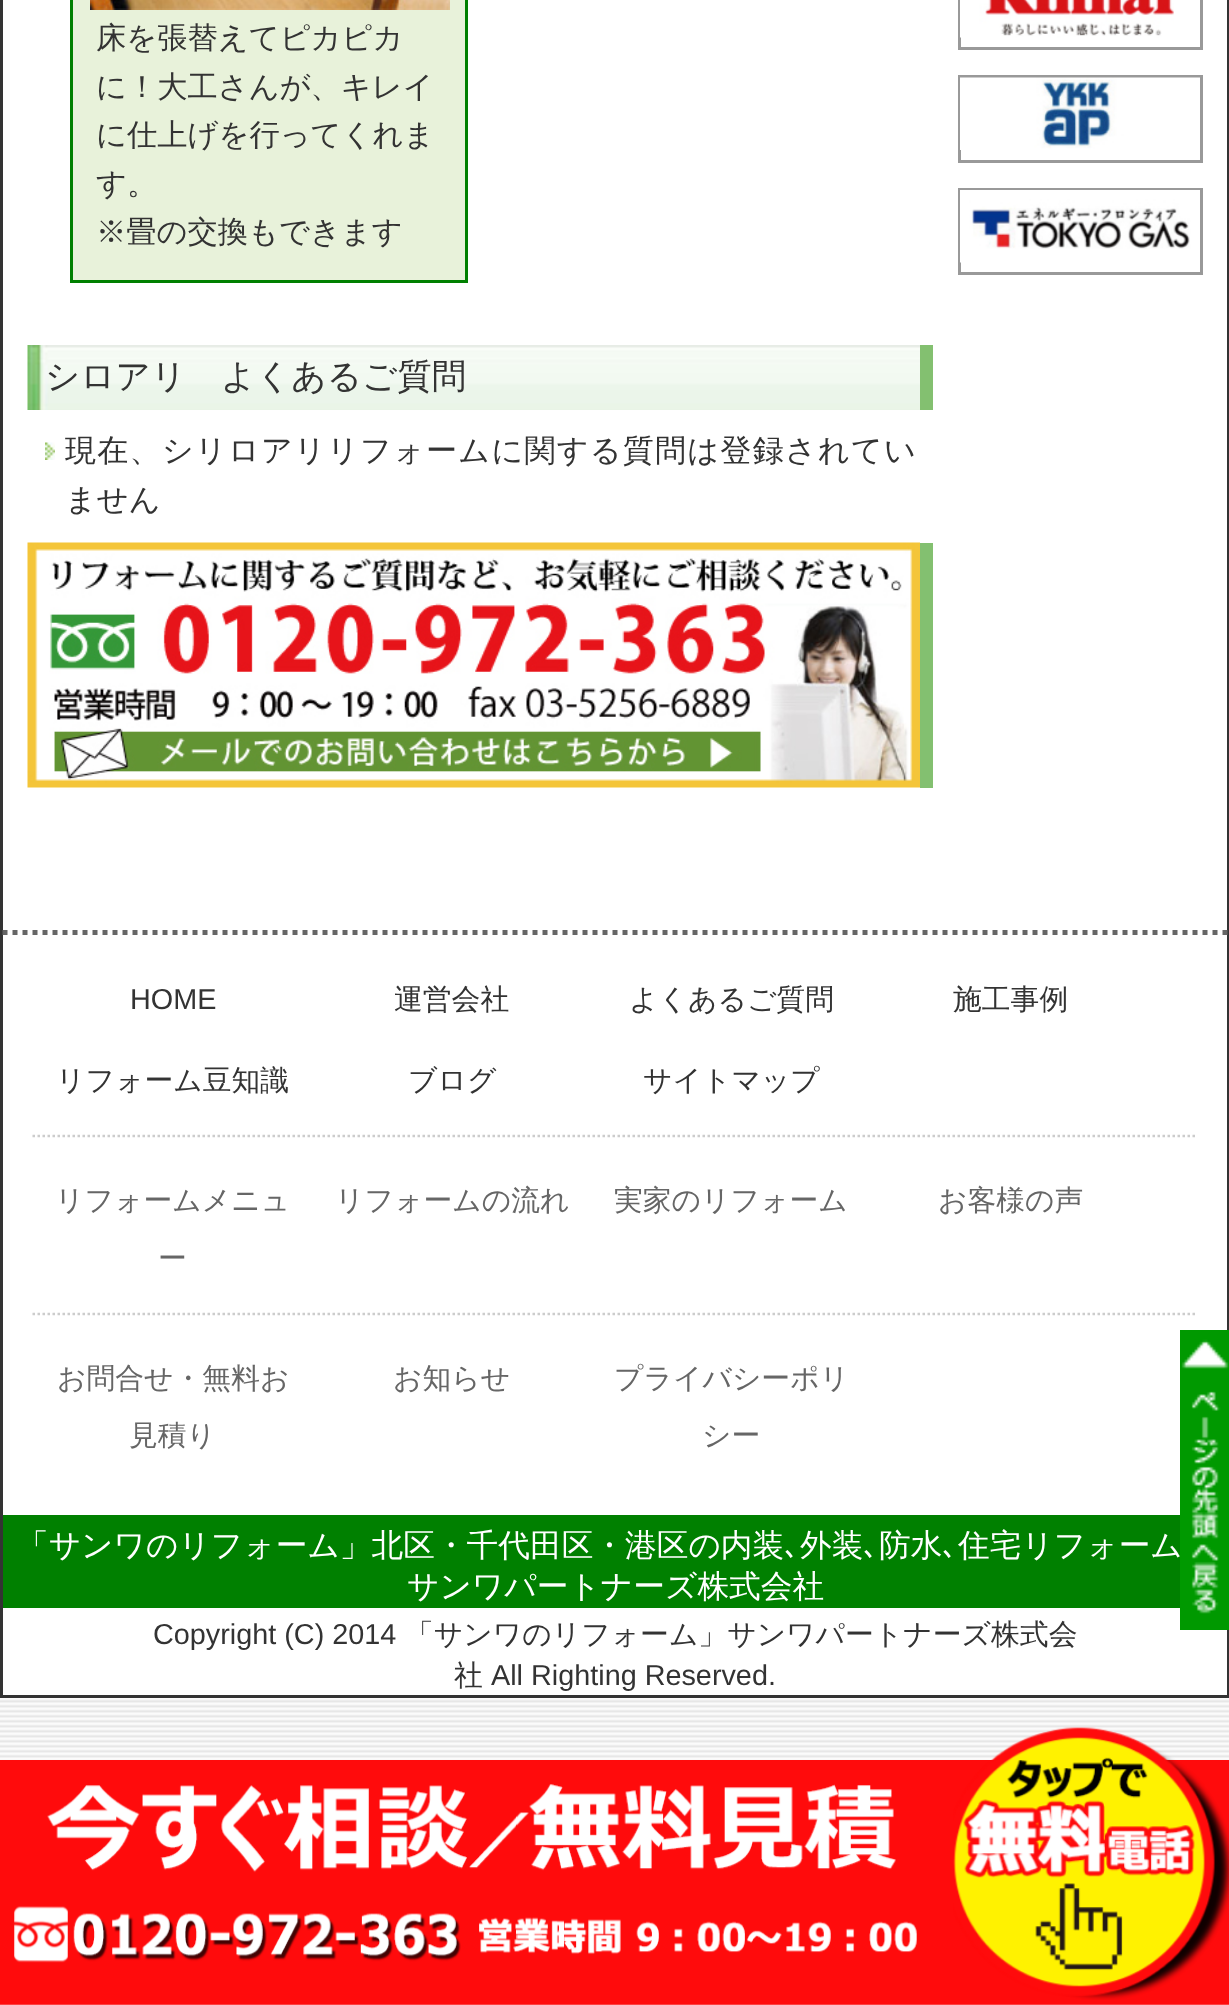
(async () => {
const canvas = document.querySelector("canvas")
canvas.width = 1229
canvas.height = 2005
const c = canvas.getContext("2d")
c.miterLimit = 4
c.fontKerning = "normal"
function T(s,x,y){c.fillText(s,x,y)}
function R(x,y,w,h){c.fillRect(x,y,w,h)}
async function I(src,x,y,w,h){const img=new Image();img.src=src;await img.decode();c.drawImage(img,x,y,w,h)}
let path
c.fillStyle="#fff"
R(0,0,1229,2005)
await I("1.png",0,1698,1229,307)
c.strokeStyle="#333"
c.lineWidth=3
c.strokeRect(1.5,-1.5,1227,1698)
c.fillStyle="#e8f2da"
c.beginPath()
c.rect(71.5,-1.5,395,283)
c.fill()
c.strokeStyle="#008000"
c.stroke()
await I("2.png",90,0,360,10)
c.font="500 30.25px WenQuanYi Zen Hei"
c.fillStyle="#333"
T("床を張替えてピカピカ",96,48)
T("に！大工さんが、キレイ",96,97)
T("に仕上げを行ってくれま",96,145)
T("す。",96,194)
T("※畳の交換もできます",96,242)
await I("3.png",27,345,893,65)
c.fillStyle="#83c070"
R(920,345,13,65)
c.font="500 34.5px WenQuanYi Zen Hei"
c.fillStyle="#333"
T("シロアリ　よくあるご質問",45,388)
await I("4.png",45,442,10,18)
c.letterSpacing="1.2px"
c.font="500 31.1px WenQuanYi Zen Hei"
T("現在、シリロアリリフォームに関する質問は登録されてい",65,461)
c.letterSpacing="0px"
T("ません",65,510)
c.fillStyle="#83c070"
R(920,543,13,245)
await I("5.png",27,542,893,246)
c.strokeStyle="#999"
c.strokeRect(959.5,-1.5,242,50)
await I("6.png",960,0,214,38)
c.strokeRect(959.5,76.5,242,85)
await I("7.png",960,77,240,73)
c.strokeRect(959.5,189.5,242,84)
await I("8.png",960,190,240,73)
path = new Path2D("M2.5 932.5h1225")
c.strokeStyle="#666"
c.lineWidth=5
c.setLineDash([5,5])
c.stroke(path)
path = new Path2D("M32.5 1136h1165")
c.strokeStyle="#ccc"
c.lineWidth=2.5
c.setLineDash([2.5,2.5])
c.stroke(path)
c.font="28.8px Liberation Sans"
c.fillStyle="#333"
T("HOME",130,1009)
c.font="500 28.8px WenQuanYi Zen Hei"
T("運営会社",394,1009)
T("よくあるご質問",629,1009)
T("施工事例",953,1009)
T("リフォーム豆知識",56,1090)
T("ブログ",408,1090)
T("サイトマップ",643,1090)
path = new Path2D("M32.5 1314h1165")
c.stroke(path)
c.fillStyle="#666"
T("リフォームメニュ",55,1210)
T("ー",158,1268)
T("リフォームの流れ",335,1210)
T("実家のリフォーム",614,1210)
T("お客様の声",938,1210)
T("お問合せ・無料お",57,1388)
T("見積り",129,1445)
T("お知らせ",393,1388)
T("プライバシーポリ",614,1388)
T("シー",702,1445)
c.fillStyle="#008000"
R(3,1515,1177,93)
c.font="500 31.7px WenQuanYi Zen Hei"
c.fillStyle="#fff"
T("「サンワのリフォーム」北区・千代田区・港区の内装",17,1556)
c.font="31.7px IPAPGothic"
T("､",784,1556)
c.font="500 31.7px WenQuanYi Zen Hei"
T("外装",800,1556)
c.font="31.7px IPAPGothic"
T("､",863,1556)
c.font="500 31.7px WenQuanYi Zen Hei"
T("防水",879,1556)
c.font="31.7px IPAPGothic"
T("､",942,1556)
c.font="500 31.7px WenQuanYi Zen Hei"
T("住宅リフォーム",958,1556)
T("サンワパートナーズ株式会社",407,1597)
c.font="28.8px Liberation Sans"
c.fillStyle="#333"
T("Copyright (C) 2014",153,1644)
c.font="500 28.8px WenQuanYi Zen Hei"
T("「サンワのリフォーム」サンワパートナーズ株式会",405,1644)
T("社",454,1685)
c.font="28.8px Liberation Sans"
T("All Righting Reserved.",491,1685)
await I("9.png",1180,1330,49,300)
await I("11.png",0,1760,1229,245)
await I("10.png",953,1727,276,273)
})()
